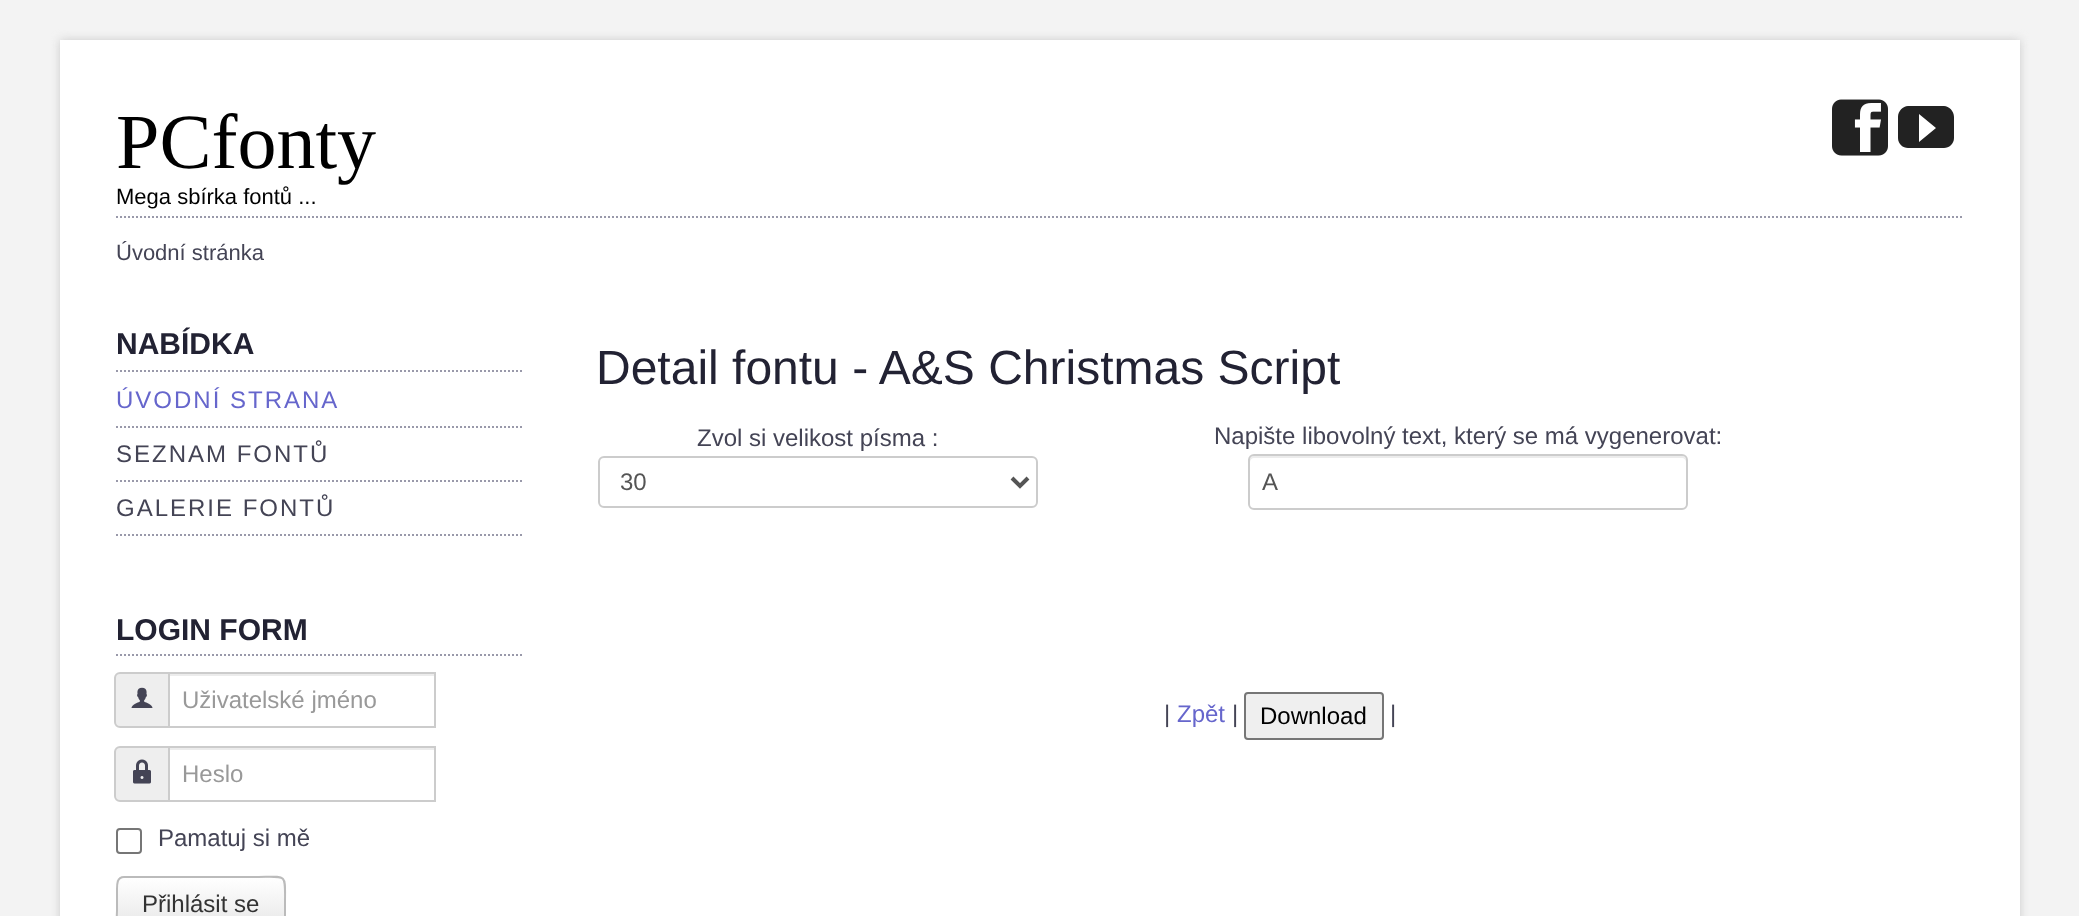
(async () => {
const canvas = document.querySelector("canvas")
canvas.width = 2079
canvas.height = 916
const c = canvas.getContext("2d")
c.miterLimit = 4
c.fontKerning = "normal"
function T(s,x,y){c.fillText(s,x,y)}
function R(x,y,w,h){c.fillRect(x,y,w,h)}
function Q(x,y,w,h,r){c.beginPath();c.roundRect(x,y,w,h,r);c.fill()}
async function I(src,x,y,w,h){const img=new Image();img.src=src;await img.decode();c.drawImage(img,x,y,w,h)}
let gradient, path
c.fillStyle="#f3f3f3"
R(0,0,2079,916)
c.fillStyle="#ccc"
c.filter="blur(5px)"
c.beginPath()
c.rect(60,40,1960,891)
c.fill()
c.filter="none"
c.fillStyle="#fff"
R(60,40,1960,876)
path = new Path2D("M116 217h1848")
c.strokeStyle="#99a"
c.lineWidth=2
c.setLineDash([2,2])
c.stroke(path)
c.font="78px Liberation Serif"
c.fillStyle="#000"
T("PCfonty",116,168)
c.font="22px Liberation Sans"
T("Mega sbírka fontů ...",116,204)
await I("1.png",1832,99,56,57)
c.fillStyle="#222"
path = new Path2D("M1944 106c5 0 10 5 10 11v21c0 6-5 10-10 10h-36c-5 0-10-4-10-10v-21c0-6 5-11 10-11zm-25 36l17-14l-17-14z")
c.fill(path)
c.fillStyle="#445"
T("Úvodní stránka",116,260)
path = new Path2D("M116 371h408")
c.stroke(path)
c.font="bold 30px Liberation Sans"
c.fillStyle="#223"
T("NABÍDKA",116,354)
path = new Path2D("M116 427h408")
c.stroke(path)
c.letterSpacing="2px"
c.font="24px Liberation Sans"
c.fillStyle="#66c"
T("ÚVODNÍ STRANA",116,408)
path = new Path2D("M116 481h408")
c.stroke(path)
c.fillStyle="#445"
T("SEZNAM FONTŮ",116,462)
path = new Path2D("M116 535h408")
c.stroke(path)
T("GALERIE FONTŮ",116,516)
path = new Path2D("M116 655h408")
c.stroke(path)
c.letterSpacing="0px"
c.font="bold 30px Liberation Sans"
c.fillStyle="#223"
T("LOGIN FORM",116,640)
c.fillStyle="#eee"
c.beginPath()
c.roundRect(115,673,54,54,[5,0,0,5])
c.fill()
c.strokeStyle="#ccc"
c.setLineDash([])
c.stroke()
await I("2.png",131,687,22,21)
c.fillStyle="#ececec"
R(170,674,264,2)
c.strokeRect(169,673,266,54)
c.font="24px Liberation Sans"
c.fillStyle="#999"
T("Uživatelské jméno",182,708)
c.fillStyle="#eee"
c.beginPath()
c.roundRect(115,747,54,54,[5,0,0,5])
c.fill()
c.stroke()
await I("3.png",133,759,18,25)
c.fillStyle="#ececec"
R(170,748,264,2)
c.strokeRect(169,747,266,54)
c.fillStyle="#999"
T("Heslo",182,782)
c.beginPath()
c.roundRect(117,829,24,24,3)
c.strokeStyle="#767676"
c.stroke()
c.fillStyle="#445"
T("Pamatuj si mě",158,846)
c.fillStyle="#f5f5f5"
Q(116,876,170,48,8)
c.save()
c.beginPath()
c.roundRect(116,876,170,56,8)
c.clip()
gradient = c.createLinearGradient(201,878,201,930)
gradient.addColorStop(0,"#fff")
gradient.addColorStop(1,"#e6e6e6")
c.fillStyle = gradient
R(116,878,170,38)
c.restore()
path = new Path2D("M119 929c-3.5-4-2-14-2-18.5v-20c0-5-.5-13.5 7-13.5h128.5c36 0 32.5-5.5 32.5 27v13.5c0 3.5 1 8.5-2 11.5")
c.strokeStyle="#bbb"
c.stroke(path)
c.fillStyle="#333"
T("Přihlásit se",142,912)
c.font="48px Liberation Sans"
c.fillStyle="#223"
T("Detail fontu - A&S Christmas Script",596,384)
c.font="24px Liberation Sans"
c.fillStyle="#445"
T("Zvol si velikost písma :",697,446)
c.beginPath()
c.roundRect(599,457,438,50,5)
c.strokeStyle="#ccc"
c.stroke()
path = new Path2D("M1012 478l8 8l8-8")
c.strokeStyle="#555"
c.lineWidth=4
c.stroke(path)
c.fillStyle="#555"
T("30",620,490)
c.fillStyle="#445"
T("Napište libovolný text, který se má vygenerovat:",1214,444)
c.fillStyle="#ececec"
path = new Path2D("M1254 458h428c2 0 4 2 4 4v-2c0-2-2-4-4-4h-428c-2 0-4 2-4 4v2c0-2 2-4 4-4z")
c.fill(path)
c.beginPath()
c.roundRect(1249,455,438,54,5)
c.strokeStyle="#ccc"
c.lineWidth=2
c.stroke()
c.fillStyle="#555"
T("A",1262,490)
c.fillStyle="#445"
T("|",1164,722)
c.fillStyle="#66c"
T("Zpět",1177,722)
c.fillStyle="#445"
T("|",1232,722)
c.fillStyle="#efefef"
c.beginPath()
c.roundRect(1245,693,138,46,3)
c.fill()
c.strokeStyle="#767676"
c.stroke()
c.fillStyle="#000"
T("Download",1260,724)
c.fillStyle="#445"
T("|",1390,722)
})()
